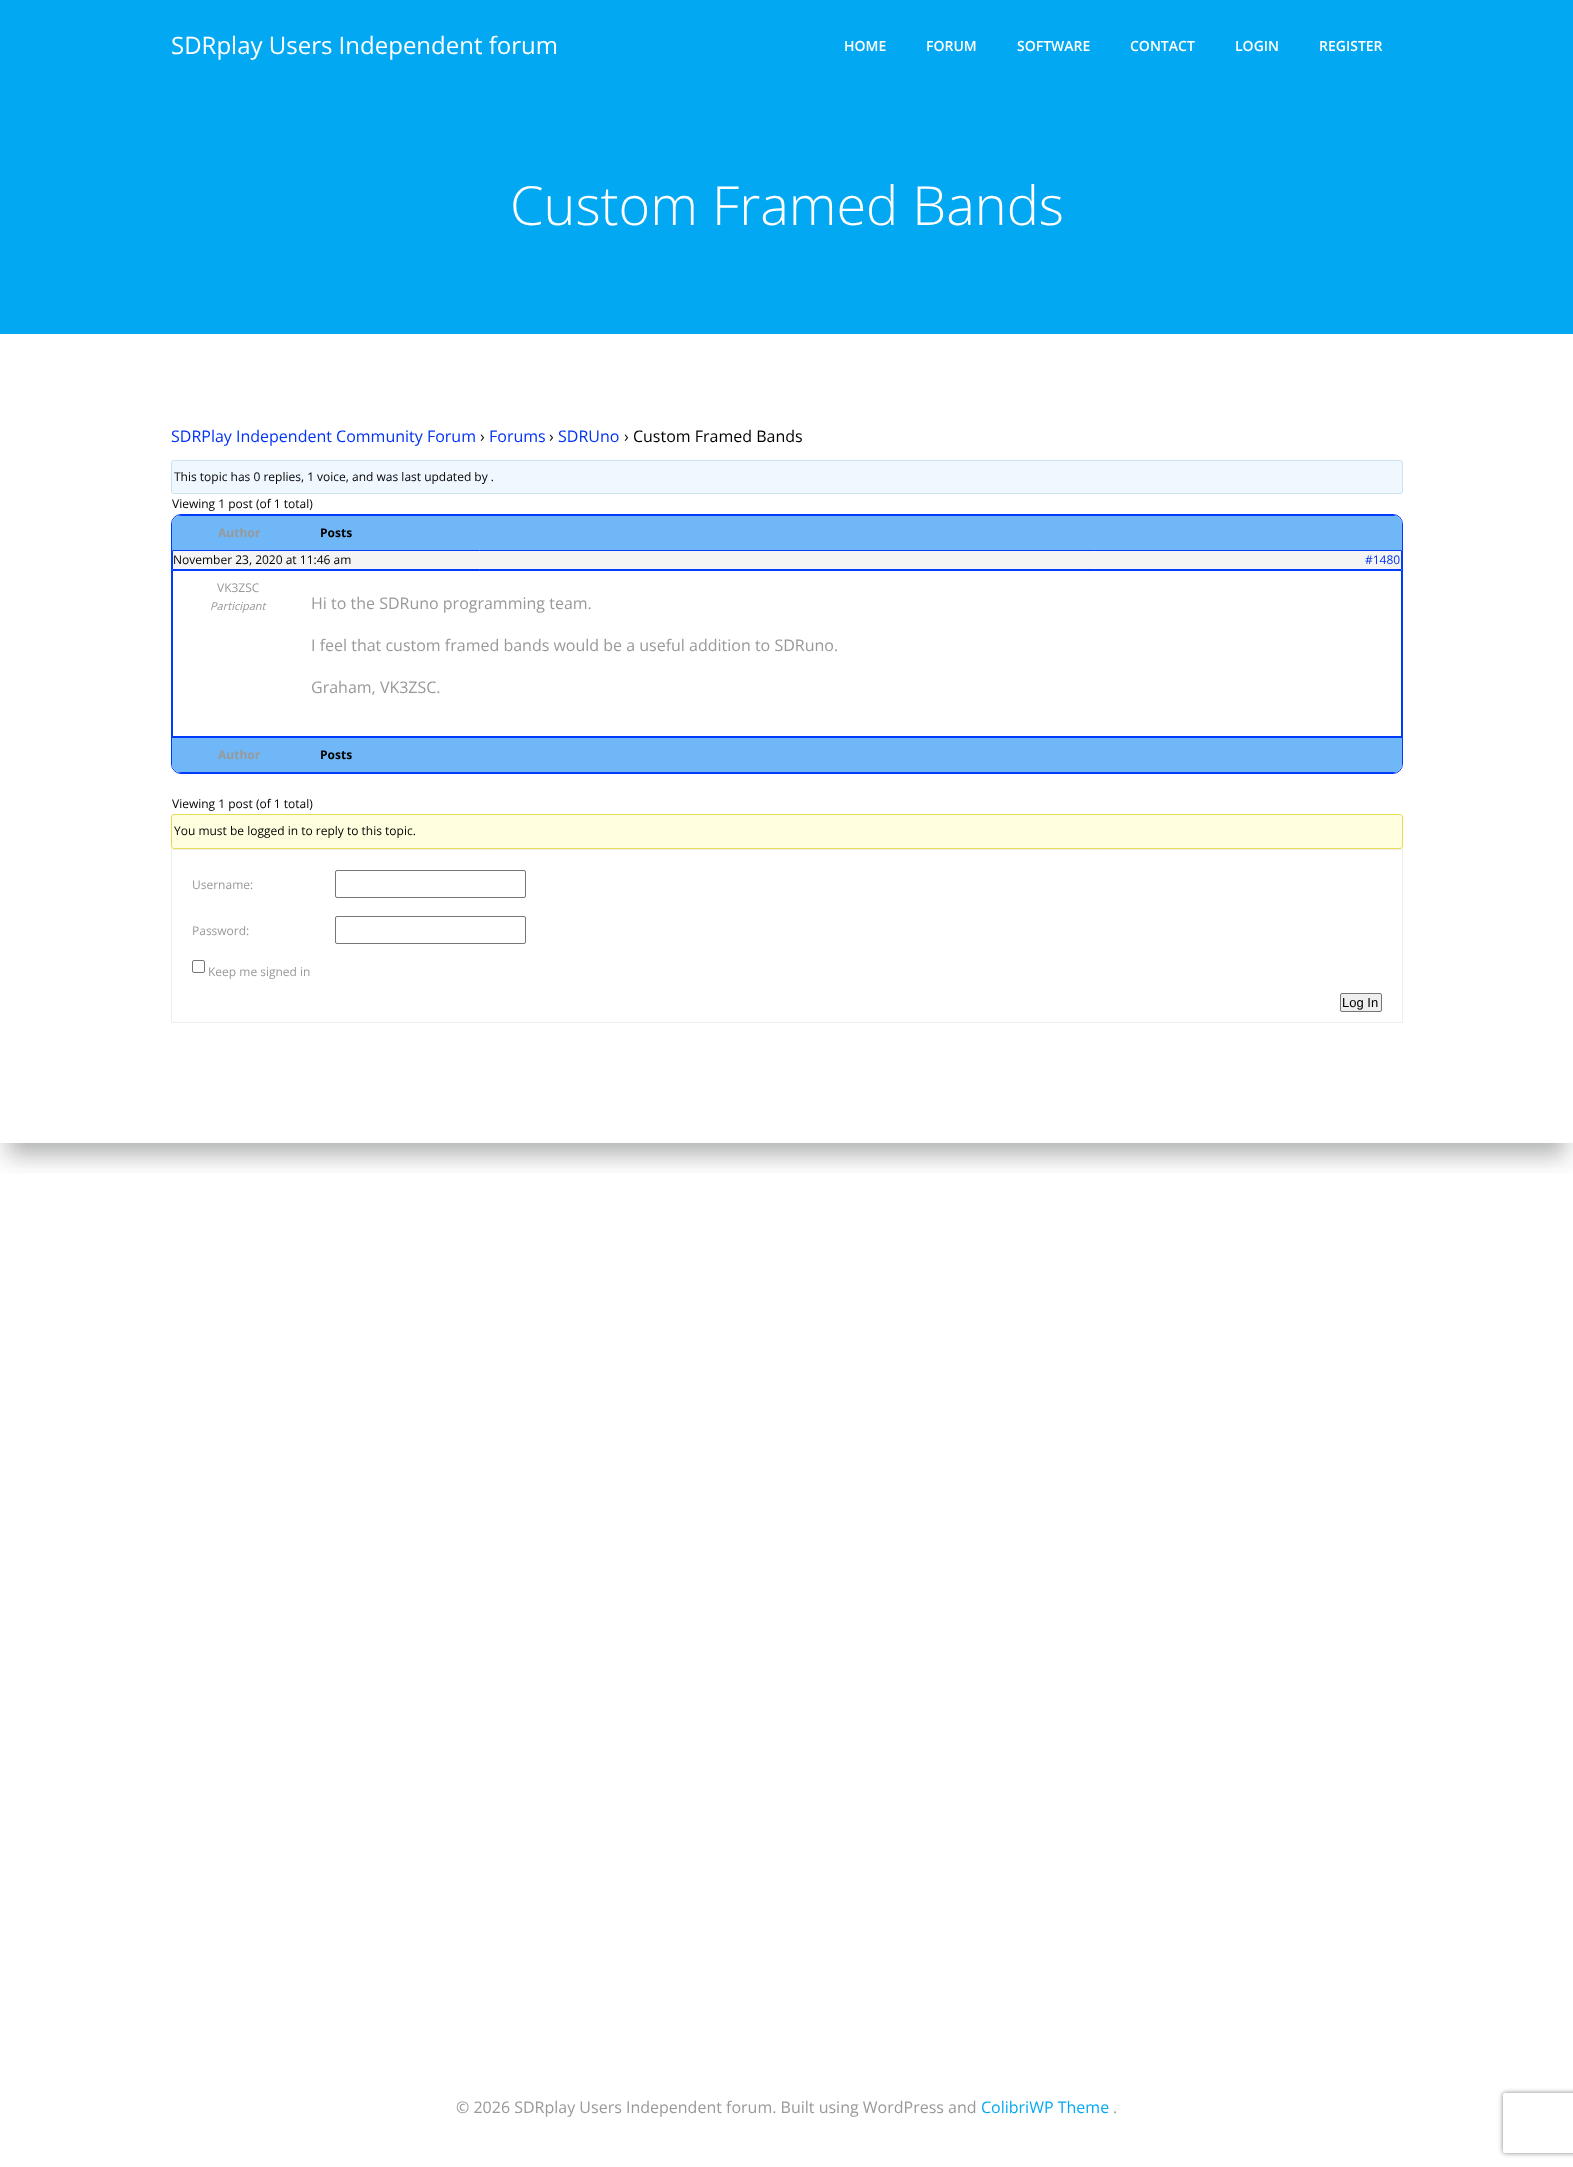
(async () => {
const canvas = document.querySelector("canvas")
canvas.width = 1573
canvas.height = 2167
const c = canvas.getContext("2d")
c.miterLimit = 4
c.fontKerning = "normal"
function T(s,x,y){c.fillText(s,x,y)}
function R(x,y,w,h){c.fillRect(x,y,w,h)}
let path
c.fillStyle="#fff"
R(0,0,1573,2167)
c.save()
c.beginPath()
c.rect(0,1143,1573,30)
c.clip()
c.fillStyle="#00000014"
c.filter="blur(15px)"
c.beginPath()
c.rect(0,354,1573,809)
c.fill()
c.filter="none"
c.restore()
c.save()
c.beginPath()
c.rect(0,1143,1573,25)
c.clip()
c.fillStyle="#3134394d"
c.filter="blur(10px)"
c.beginPath()
c.rect(10,364,1553,789)
c.fill()
c.filter="none"
c.restore()
c.fillStyle="#03a8f2"
R(0,0,1573,334)
c.font="24px Open Sans"
c.fillStyle="#fff"
T("SDRplay Users Independent forum",171,54)
c.font="600 14px Open Sans"
T("HOME",844,51)
T("FORUM",926,51)
T("SOFTWARE",1017,51)
T("CONTACT",1130,51)
T("LOGIN",1235,51)
T("REGISTER",1319,51)
c.font="300 54px Open Sans"
T("Custom Framed Bands",510,225)
c.font="16px Open Sans"
c.fillStyle="#0232f4"
T("SDRPlay Independent Community Forum",171,442)
c.fillStyle="#000"
T("›",480,442)
c.fillStyle="#0232f4"
T("Forums",489,442)
c.fillStyle="#000"
T("›",549,442)
c.fillStyle="#0232f4"
T("SDRUno",558,442)
c.fillStyle="#000"
T("› Custom Framed Bands",624,442)
c.fillStyle="#f0f8ff"
c.beginPath()
c.roundRect(171.5,460.5,1231,33,2.5)
c.fill()
c.strokeStyle="#cee1ef"
c.stroke()
c.font="12px Open Sans"
c.fillStyle="#000"
T("This topic has 0 replies, 1 voice, and was last updated by .",174,481)
T("Viewing 1 post (of 1 total)",172,508)
c.beginPath()
c.roundRect(171.5,514.5,1231,259,9.5)
c.strokeStyle="#003afc"
c.stroke()
c.fillStyle="#6fb7f7"
c.beginPath()
c.roundRect(172,515,1230,35,[9,9,0,0])
c.fill()
c.save()
c.beginPath()
c.roundRect(172,515,1230,258,9)
c.clip()
c.fillStyle="#003afc"
R(172,515,1230,1)
c.restore()
c.font="bold 12px Open Sans"
c.fillStyle="#999"
T("Author",218,537)
c.fillStyle="#000"
T("Posts",320,537)
c.fillStyle="#f4f4f4"
c.beginPath()
c.rect(172.5,550.5,1229,19)
c.fill()
c.stroke()
c.font="12px Open Sans"
c.fillStyle="#000"
T("November 23, 2020 at 11:46 am",173,564)
c.fillStyle="#0232f4"
T("#1480",1365,564)
c.strokeRect(172.5,570.5,1229,166)
c.fillStyle="#999"
T("VK3ZSC",217,592)
c.font="italic 11px Open Sans"
T("Participant",210,610)
c.font="16px Open Sans"
T("Hi to the SDRuno programming team.",311,609)
T("I feel that custom framed bands would be a useful addition to SDRuno.",311,651)
T("Graham, VK3ZSC.",311,693)
c.fillStyle="#6fb7f7"
c.beginPath()
c.roundRect(172,737,1230,36,[0,0,9,9])
c.fill()
c.fillStyle="#003afc"
R(172,737,1230,1)
c.save()
c.beginPath()
c.roundRect(172,515,1230,258,9)
c.clip()
R(172,772,1230,1)
c.restore()
c.font="bold 12px Open Sans"
c.fillStyle="#999"
T("Author",218,759)
c.fillStyle="#000"
T("Posts",320,759)
c.font="12px Open Sans"
T("Viewing 1 post (of 1 total)",172,808)
c.fillStyle="#ffffe0"
c.beginPath()
c.roundRect(171.5,814.5,1231,34,2.5)
c.fill()
c.strokeStyle="#e6db55"
c.stroke()
c.fillStyle="#000"
T("You must be logged in to reply to this topic.",174,835)
c.strokeStyle="#eee"
c.strokeRect(171.5,849.5,1231,173)
c.fillStyle="#999"
T("Username:",192,889)
c.beginPath()
c.roundRect(335.5,870.5,190,27,1.5)
c.strokeStyle="#767676"
c.stroke()
T("Password:",192,935)
c.beginPath()
c.roundRect(335.5,916.5,190,27,1.5)
c.stroke()
c.beginPath()
c.roundRect(192.5,960.5,12,12,1.5)
c.stroke()
T("Keep me signed in",208,976)
c.fillStyle="#efefef"
c.beginPath()
c.roundRect(1340.5,993.5,41,18,1.5)
c.fill()
c.stroke()
c.font="13px Liberation Sans"
c.fillStyle="#000"
T("Log In",1342,1007)
c.font="16px Open Sans"
c.fillStyle="#999"
T("© 2026 SDRplay Users Independent forum. Built using WordPress and",456,2113)
c.fillStyle="#03a9f4"
T("ColibriWP Theme",981,2113)
c.fillStyle="#999"
T(".",1113,2113)
c.save()
path = new Path2D("M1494 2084h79v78h-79zm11 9h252c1 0 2 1 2 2v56c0 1-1 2-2 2h-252c-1 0-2-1-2-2v-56c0-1 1-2 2-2z")
c.clip(path,"evenodd")
c.fillStyle="#808080"
c.filter="blur(2.5px)"
c.beginPath()
c.roundRect(1503,2093,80,60,2)
c.fill()
c.filter="none"
c.restore()
})()
